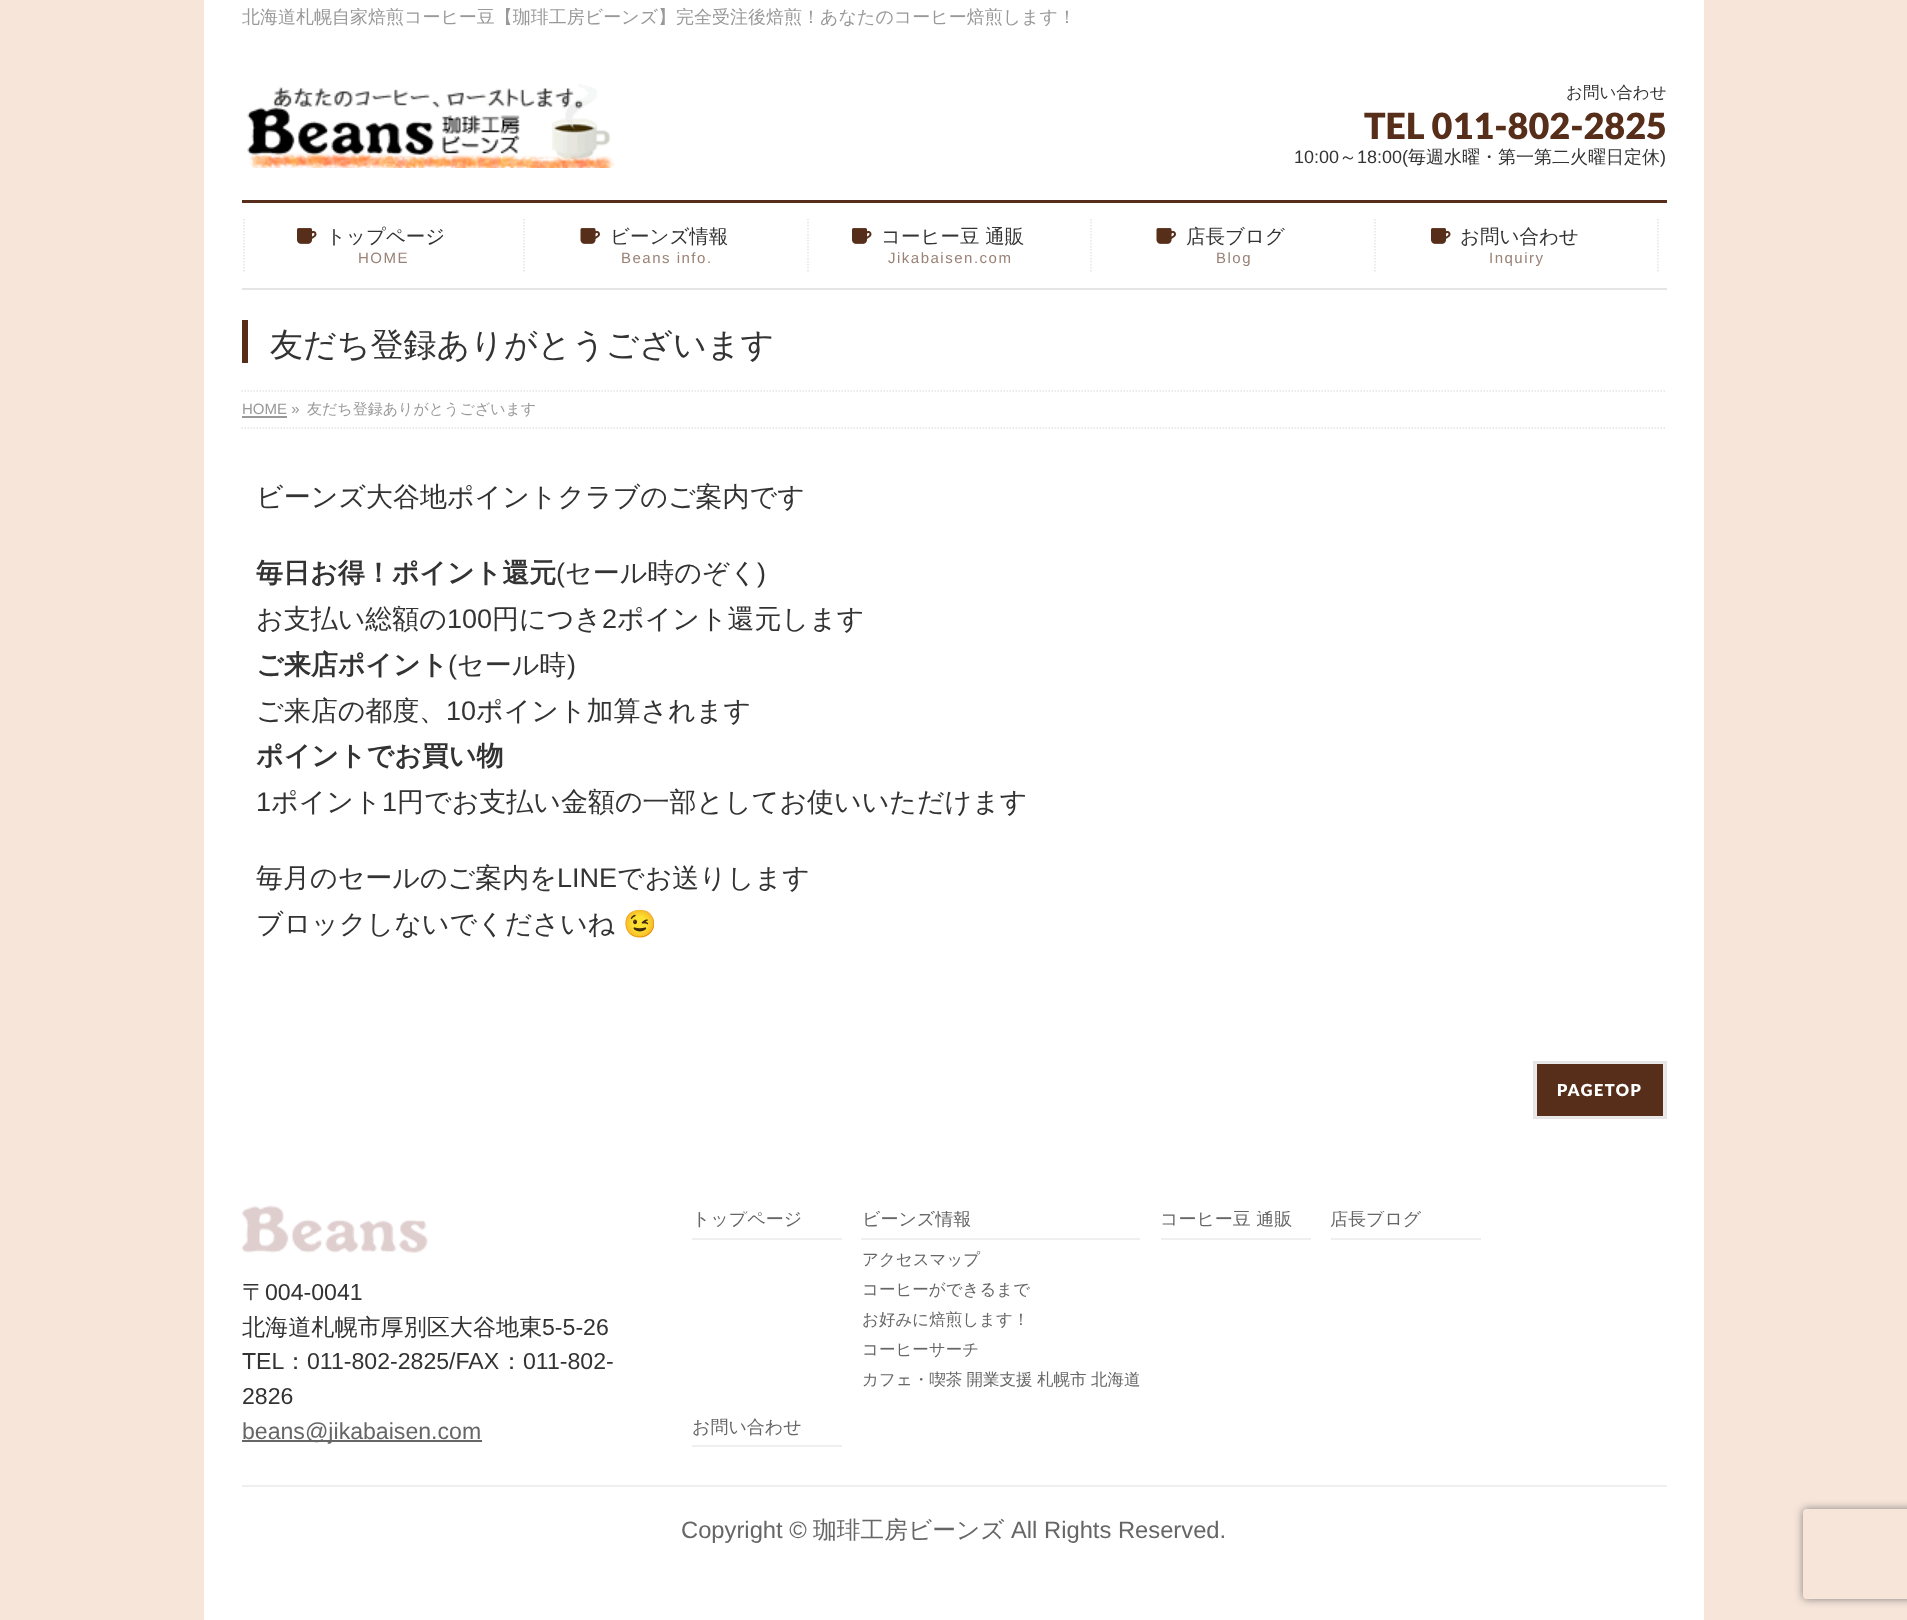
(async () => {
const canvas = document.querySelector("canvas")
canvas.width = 1907
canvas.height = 1620
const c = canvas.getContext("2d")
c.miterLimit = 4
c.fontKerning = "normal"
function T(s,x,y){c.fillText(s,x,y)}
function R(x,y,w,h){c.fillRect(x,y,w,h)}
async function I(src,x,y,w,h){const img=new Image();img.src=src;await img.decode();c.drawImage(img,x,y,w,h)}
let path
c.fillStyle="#f7e5d9"
R(0,0,1907,1620)
c.fillStyle="#fff"
R(204,0,1500,290)
c.font="500 18px WenQuanYi Zen Hei"
c.fillStyle="#999"
T("北海道札幌自家焙煎コーヒー豆【珈琲工房ビーンズ】完全受注後焙煎！あなたのコーヒー焙煎します！",242,23)
await I("1.png",247,84,368,84)
c.font="500 16.5px WenQuanYi Zen Hei"
c.fillStyle="#333"
T("お問い合わせ",1566,98)
c.font="900 36px Lato"
c.fillStyle="#562e1a"
T("TEL 011-802-2825",1364,139)
c.font="18px Liberation Sans"
c.fillStyle="#333"
T("10:00",1294,163)
c.font="500 18px WenQuanYi Zen Hei"
T("～",1339,163)
c.font="18px Liberation Sans"
T("18:00(",1357,163)
c.font="500 18px WenQuanYi Zen Hei"
T("毎週水曜・第一第二火曜日定休",1408,163)
c.font="18px Liberation Sans"
T(")",1660,163)
c.fillStyle="#562e1a"
R(242,200,1425,3)
c.fillStyle="#e5e5e5"
R(242,288,1425,2)
path = new Path2D("M244 219v52.5")
c.strokeStyle="#e5e5e5"
c.lineWidth=1.5
c.setLineDash([1.5,1.5])
c.stroke(path)
await I("2.png",297,228,20,16)
c.font="500 19.5px WenQuanYi Zen Hei"
c.fillStyle="#333"
T("トップページ",326,243)
c.letterSpacing="1.5px"
c.font="15px Liberation Sans"
c.fillStyle="#9a8276"
T("HOME",358,263)
path = new Path2D("M524 219v52.5")
c.stroke(path)
await I("3.png",580,228,20,16)
c.letterSpacing="0px"
c.font="500 19.5px WenQuanYi Zen Hei"
c.fillStyle="#333"
T("ビーンズ情報",610,243)
c.letterSpacing="1.5px"
c.font="15px Liberation Sans"
c.fillStyle="#9a8276"
T("Beans info.",621,263)
path = new Path2D("M808 219v52.5")
c.stroke(path)
await I("2.png",852,228,20,16)
c.letterSpacing="0px"
c.font="500 19.5px WenQuanYi Zen Hei"
c.fillStyle="#333"
T("コーヒー豆 通販",881,243)
c.letterSpacing="1.5px"
c.font="15px Liberation Sans"
c.fillStyle="#9a8276"
T("Jikabaisen.com",888,263)
path = new Path2D("M1091 219v52.5")
c.stroke(path)
await I("3.png",1156,228,20,16)
c.letterSpacing="0px"
c.font="500 19.5px WenQuanYi Zen Hei"
c.fillStyle="#333"
T("店長ブログ",1186,243)
c.letterSpacing="1.5px"
c.font="15px Liberation Sans"
c.fillStyle="#9a8276"
T("Blog",1216,263)
path = new Path2D("M1375 219v52.5")
c.stroke(path)
await I("2.png",1431,228,20,16)
c.letterSpacing="0px"
c.font="500 19.5px WenQuanYi Zen Hei"
c.fillStyle="#333"
T("お問い合わせ",1460,243)
c.letterSpacing="1.5px"
c.font="15px Liberation Sans"
c.fillStyle="#9a8276"
T("Inquiry",1489,263)
path = new Path2D("M1658 219v52.5")
c.stroke(path)
c.fillStyle="#fff"
R(204,290,1500,100)
c.fillStyle="#562e1a"
R(242,320,6,43)
c.letterSpacing="0px"
c.font="500 33px WenQuanYi Zen Hei"
c.fillStyle="#333"
T("友だち登録ありがとうございます",270,356)
c.fillStyle="#fff"
R(204,390,1500,759)
path = new Path2D("M241.5 391h1425")
c.stroke(path)
path = new Path2D("M241.5 428h1425")
c.stroke(path)
c.font="15px Liberation Sans"
c.fillStyle="#999"
T("HOME »",242,414)
R(242,416,45,2)
c.font="500 15px WenQuanYi Zen Hei"
T("友だち登録ありがとうございます",307,414)
c.font="500 27px WenQuanYi Zen Hei"
c.fillStyle="#333"
T("ビーンズ大谷地ポイントクラブのご案内です",256,506)
c.font="bold 27px WenQuanYi Zen Hei"
T("毎日お得！ポイント還元",256,582)
c.font="27px Liberation Sans"
T("(",556,582)
c.font="500 27px WenQuanYi Zen Hei"
T("セール時のぞく",565,582)
c.font="27px Liberation Sans"
T(")",757,582)
c.font="500 27px WenQuanYi Zen Hei"
T("お支払い総額の",256,628)
c.font="27px Liberation Sans"
T("100",447,628)
c.font="500 27px WenQuanYi Zen Hei"
T("円につき",492,628)
c.font="27px Liberation Sans"
T("2",602,628)
c.font="500 27px WenQuanYi Zen Hei"
T("ポイント還元します",617,628)
c.font="bold 27px WenQuanYi Zen Hei"
T("ご来店ポイント",256,674)
c.font="27px Liberation Sans"
T("(",448,674)
c.font="500 27px WenQuanYi Zen Hei"
T("セール時",457,674)
c.font="27px Liberation Sans"
T(")",567,674)
c.font="500 27px WenQuanYi Zen Hei"
T("ご来店の都度、",256,720)
c.font="27px Liberation Sans"
T("10",446,720)
c.font="500 27px WenQuanYi Zen Hei"
T("ポイント加算されます",476,720)
c.font="bold 27px WenQuanYi Zen Hei"
T("ポイントでお買い物",256,765)
c.font="27px Liberation Sans"
T("1",256,811)
c.font="500 27px WenQuanYi Zen Hei"
T("ポイント",271,811)
c.font="27px Liberation Sans"
T("1",382,811)
c.font="500 27px WenQuanYi Zen Hei"
T("円でお支払い金額の一部としてお使いいただけます",397,811)
T("毎月のセールのご案内を",256,887)
c.font="27px Liberation Sans"
T("LINE",557,887)
c.font="500 27px WenQuanYi Zen Hei"
T("でお送りします",617,887)
T("ブロックしないでくださいね",256,933)
c.font="27px Noto Color Emoji"
T("😉",623,933)
c.fillStyle="#562e1a"
c.beginPath()
c.rect(1536,1063,128,54)
c.fill()
c.strokeStyle="#eeeae8"
c.lineWidth=2
c.setLineDash([])
c.stroke()
c.strokeStyle="#e5e5e5"
c.strokeRect(1534,1062,132,56)
c.letterSpacing="1.5px"
c.font="900 16.5px Lato"
c.fillStyle="#fff"
T("PAGETOP",1557,1096)
R(204,1149,1500,471)
await I("4.png",241,1205,187,48)
c.letterSpacing="0px"
c.font="500 23.1px WenQuanYi Zen Hei"
c.fillStyle="#333"
T("〒",242,1300)
c.font="23.1px Liberation Sans"
T("004-0041",265,1300)
c.font="500 23.1px WenQuanYi Zen Hei"
T("北海道札幌市厚別区大谷地東",242,1335)
c.font="23.1px Liberation Sans"
T("5-5-26",542,1335)
T("TEL",242,1369)
c.font="500 23.1px WenQuanYi Zen Hei"
T("：",284,1369)
c.font="23.1px Liberation Sans"
T("011-802-2825/FAX",307,1369)
c.font="500 23.1px WenQuanYi Zen Hei"
T("：",500,1369)
c.font="23.1px Liberation Sans"
T("011-802-",523,1369)
T("2826",242,1404)
c.fillStyle="#666"
R(242,1440,240,2)
T("beans@jikabaisen.com",242,1439)
c.fillStyle="#efefef"
R(692,1238,150,2)
c.save()
c.beginPath()
c.rect(692,1211,150,27)
c.clip()
c.font="500 18px WenQuanYi Zen Hei"
c.fillStyle="#666"
T("トップページ",692,1225)
c.restore()
R(861,1238,279,2)
c.save()
c.beginPath()
c.rect(861,1211,279,27)
c.clip()
c.font="500 18px WenQuanYi Zen Hei"
c.fillStyle="#666"
T("ビーンズ情報",862,1225)
c.restore()
c.font="500 16.5px WenQuanYi Zen Hei"
c.fillStyle="#666"
T("アクセスマップ",862,1265)
T("コーヒーができるまで",862,1295)
T("お好みに焙煎します！",862,1325)
T("コーヒーサーチ",862,1355)
c.wordSpacing="-0.5px"
T("カフェ・喫茶 開業支援 札幌市 北海道",862,1385)
c.fillStyle="#efefef"
R(1161,1238,150,2)
c.save()
c.beginPath()
c.rect(1161,1211,150,27)
c.clip()
c.wordSpacing="0px"
c.font="500 18px WenQuanYi Zen Hei"
c.fillStyle="#666"
T("コーヒー豆 通販",1160,1225)
c.restore()
R(1331,1238,150,2)
c.save()
c.beginPath()
c.rect(1331,1211,150,27)
c.clip()
c.wordSpacing="0px"
c.font="500 18px WenQuanYi Zen Hei"
c.fillStyle="#666"
T("店長ブログ",1330,1225)
c.restore()
R(692,1445,150,2)
c.wordSpacing="0px"
c.font="500 18px WenQuanYi Zen Hei"
c.fillStyle="#666"
T("お問い合わせ",692,1433)
c.fillStyle="#efefef"
R(242,1485,1425,2)
c.font="23.75px Liberation Sans"
c.fillStyle="#666"
T("Copyright ©",681,1538)
c.font="500 23.75px WenQuanYi Zen Hei"
T("珈琲工房ビーンズ",813,1538)
c.font="23.75px Liberation Sans"
T("All Rights Reserved.",1011,1538)
c.save()
path = new Path2D("M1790 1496h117v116h-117zm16 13h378c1.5 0 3 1.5 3 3v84c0 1.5-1.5 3-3 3h-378c-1.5 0-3-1.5-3-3v-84c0-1.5 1.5-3 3-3z")
c.clip(path,"evenodd")
c.fillStyle="#808080"
c.filter="blur(4px)"
c.beginPath()
c.roundRect(1803,1509,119,90,3)
c.fill()
c.filter="none"
c.restore()
})()
